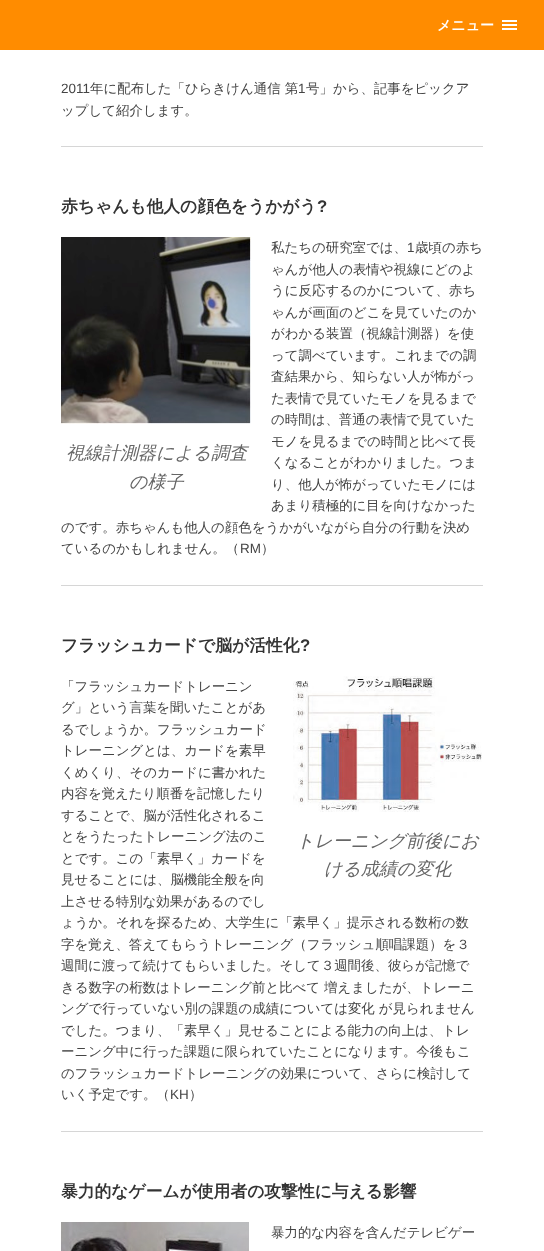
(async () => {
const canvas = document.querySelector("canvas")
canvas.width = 544
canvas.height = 1251
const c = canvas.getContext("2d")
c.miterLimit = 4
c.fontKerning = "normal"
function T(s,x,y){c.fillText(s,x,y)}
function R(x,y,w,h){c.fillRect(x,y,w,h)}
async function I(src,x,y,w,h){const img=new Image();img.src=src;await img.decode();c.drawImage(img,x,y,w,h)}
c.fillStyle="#fff"
R(0,0,544,1251)
c.fillStyle="#ff8c00"
R(0,0,544,50)
c.font="bold 14px WenQuanYi Zen Hei"
c.fillStyle="#fff"
T("メニュー",437,30)
R(502,20,15,2)
R(502,24,15,2)
R(502,28,15,2)
c.font="13.45px Liberation Sans"
c.fillStyle="#444"
T("2011",61,93)
c.font="500 13.45px WenQuanYi Zen Hei"
T("年に配布した「ひらきけん通信 第",90,93)
c.font="13.45px Liberation Sans"
T("1",298,93)
c.font="500 13.45px WenQuanYi Zen Hei"
T("号」から、記事をピックア",306,93)
T("ップして紹介します。",61,115)
c.fillStyle="#d6d6d6"
R(61,146,422,1)
c.font="bold 16.8px WenQuanYi Zen Hei"
c.fillStyle="#333"
T("赤ちゃんも他人の顔色をうかがう",61,212)
c.font="bold 16.8px Liberation Sans"
T("?",317,212)
c.font="500 13.45px WenQuanYi Zen Hei"
c.fillStyle="#444"
T("私たちの研究室では、",271,252)
c.font="13.45px Liberation Sans"
T("1",407,252)
c.font="500 13.45px WenQuanYi Zen Hei"
T("歳頃の赤ち",415,252)
T("ゃんが他人の表情や視線にどのよ",271,274)
T("うに反応するのかについて、赤ち",271,295)
T("ゃんが画面のどこを見ていたのか",271,317)
T("がわかる装置（視線計測器）を使",271,338)
T("って調べています。これまでの調",271,360)
T("査結果から、知らない人が怖がっ",271,381)
T("た表情で見ていたモノを見るまで",271,403)
T("の時間は、普通の表情で見ていた",271,424)
T("モノを見るまでの時間と比べて長",271,446)
T("くなることがわかりました。つま",271,467)
T("り、他人が怖がっていたモノには",271,489)
T("あまり積極的に目を向けなかった",271,510)
T("のです。赤ちゃんも他人の顔色をうかがいながら自分の行動を決め",61,532)
T("ているのかもしれません。（",61,553)
c.font="13.45px Liberation Sans"
T("RM",240,553)
c.font="500 13.45px WenQuanYi Zen Hei"
T("）",261,553)
await I("1.png",61,237,190,187)
c.font="italic 500 18px WenQuanYi Zen Hei"
c.fillStyle="#666"
T("視線計測器による調査",66,459)
T("の様子",129,488)
c.fillStyle="#d6d6d6"
R(61,585,422,1)
c.font="bold 16.8px WenQuanYi Zen Hei"
c.fillStyle="#333"
T("フラッシュカードで脳が活性化",61,651)
c.font="bold 16.8px Liberation Sans"
T("?",300,651)
c.font="500 13.45px WenQuanYi Zen Hei"
c.fillStyle="#444"
T("「フラッシュカードトレーニン",61,691)
T("グ」という言葉を聞いたことがあ",61,712)
T("るでしょうか。フラッシュカード",61,734)
T("トレーニングとは、カードを素早",61,755)
T("くめくり、そのカードに書かれた",61,777)
T("内容を覚えたり順番を記憶したり",61,798)
T("することで、脳が活性化されるこ",61,820)
T("とをうたったトレーニング法のこ",61,841)
T("とです。この「素早く」カードを",61,863)
T("見せることには、脳機能全般を向",61,884)
T("上させる特別な効果があるのでし",61,906)
T("ょうか。それを探るため、大学生に「素早く」提示される数桁の数",61,927)
T("字を覚え、答えてもらうトレーニング（フラッシュ順唱課題）を３",61,949)
T("週間に渡って続けてもらいました。そして３週間後、彼らが記憶で",61,970)
T("きる数字の桁数はトレーニング前と比べて 増えましたが、トレーニ",61,992)
T("ングで行っていない別の課題の成績については変化 が見られません",61,1013)
T("でした。つまり、「素早く」見せることによる能力の向上は、トレ",61,1035)
T("ーニング中に行った課題に限られていたことになります。今後もこ",61,1056)
T("のフラッシュカードトレーニングの効果について、さらに検討して",61,1078)
T("いく予定です。（",61,1099)
c.font="13.45px Liberation Sans"
T("KH",170,1099)
c.font="500 13.45px WenQuanYi Zen Hei"
T("）",189,1099)
await I("2.png",293,676,189,136)
c.font="italic 500 18px WenQuanYi Zen Hei"
c.fillStyle="#666"
T("トレーニング前後にお",296,847)
T("ける成績の変化",324,875)
c.fillStyle="#d6d6d6"
R(61,1131,422,1)
c.font="bold 16.8px WenQuanYi Zen Hei"
c.fillStyle="#333"
T("暴力的なゲームが使用者の攻撃性に与える影響",61,1197)
await I("3.png",61,1222,188,29)
c.font="500 13.45px WenQuanYi Zen Hei"
c.fillStyle="#444"
T("暴力的な内容を含んだテレビゲー",271,1237)
})()
